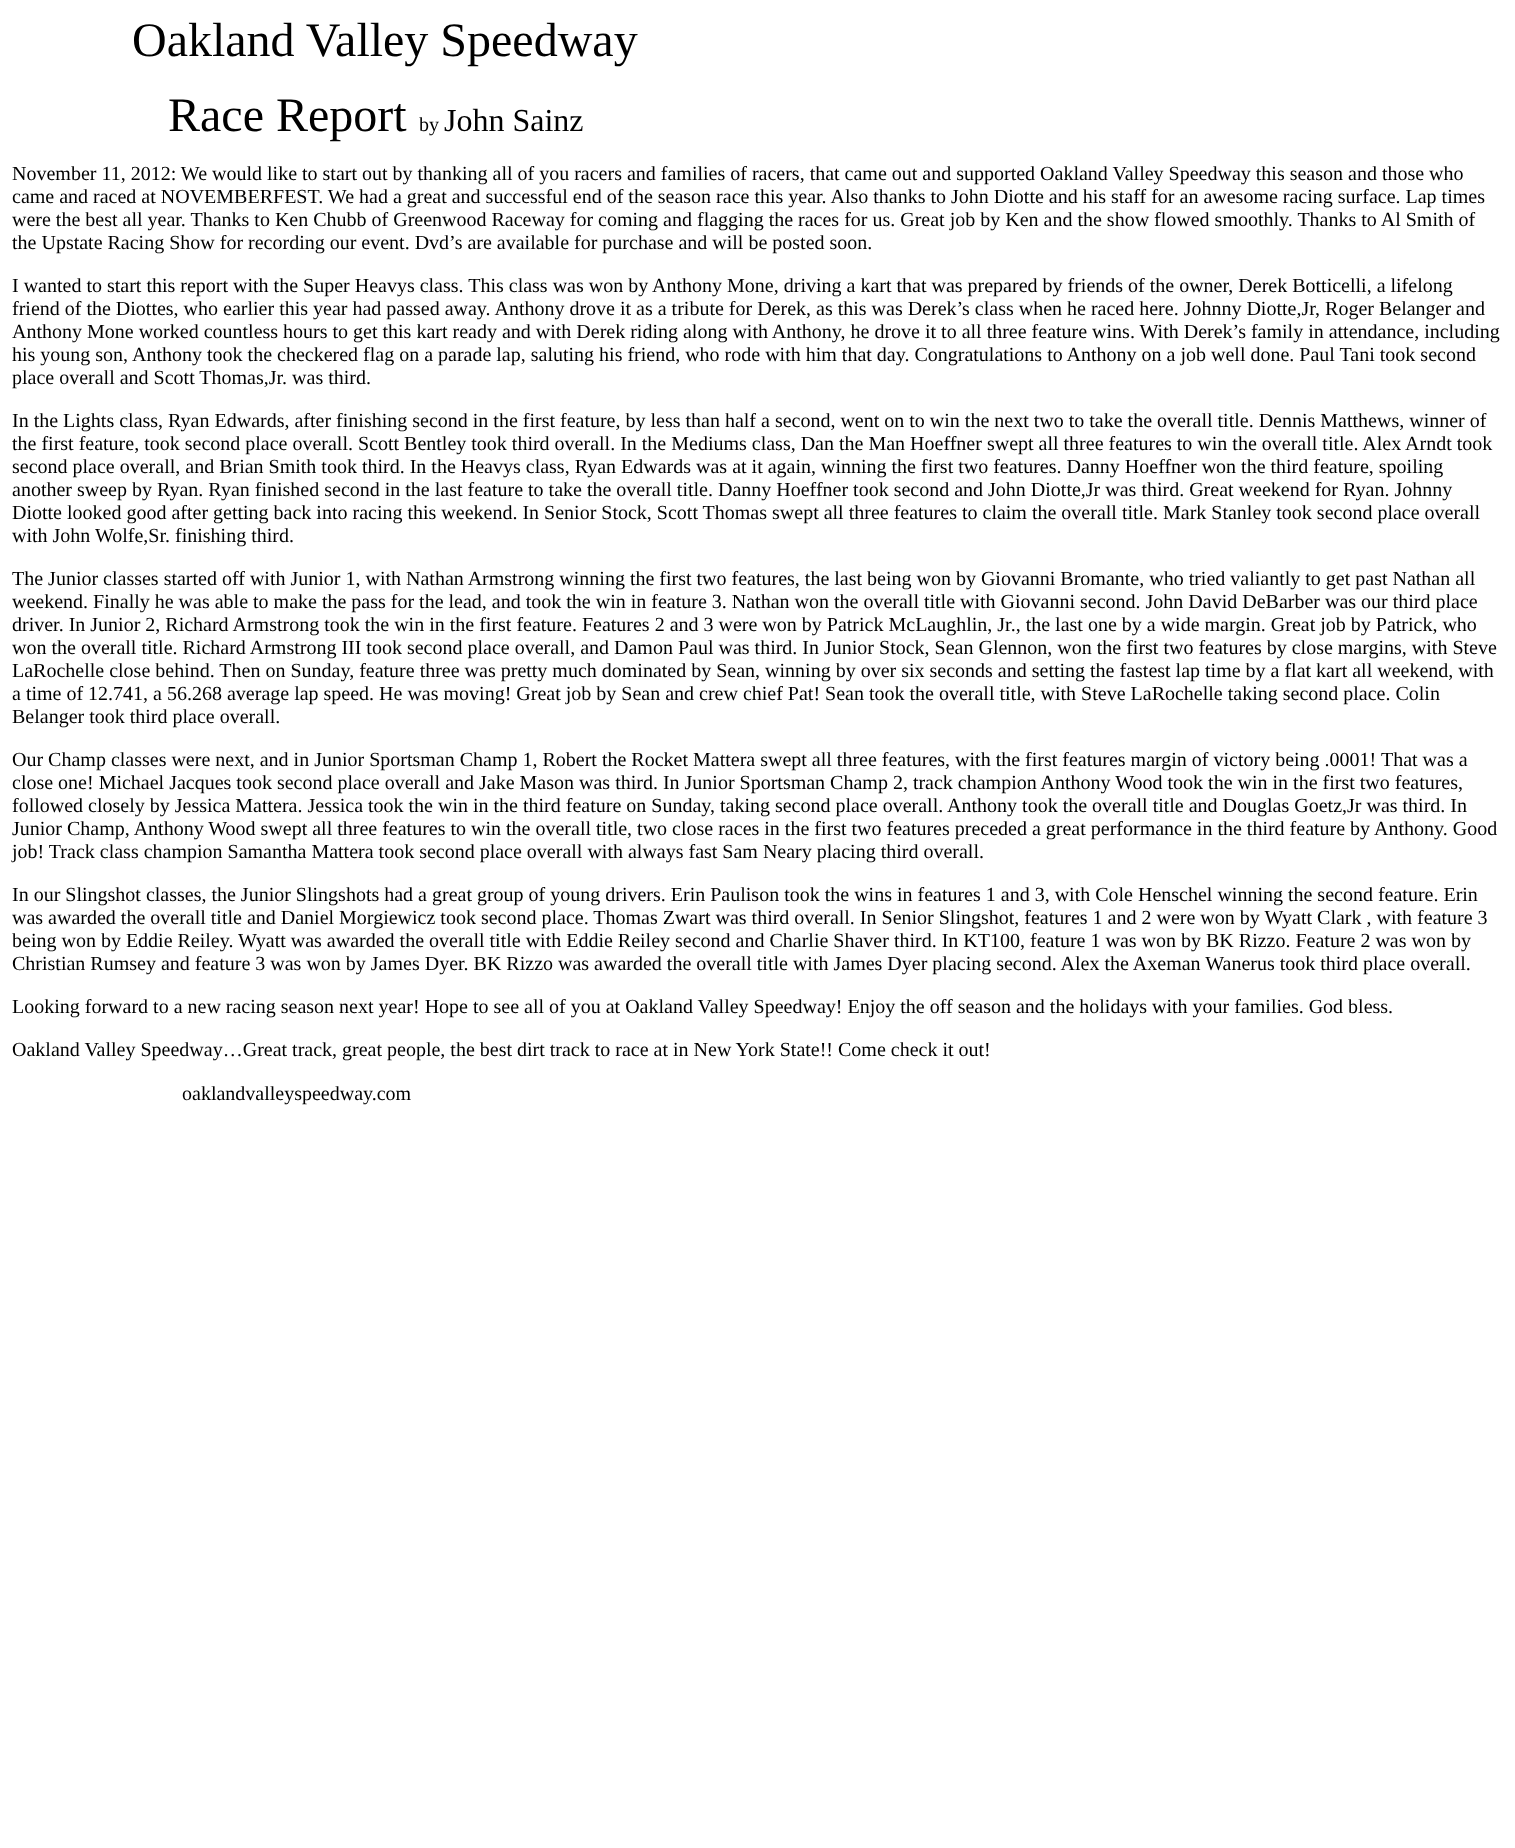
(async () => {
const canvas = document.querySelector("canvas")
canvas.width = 1515
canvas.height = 1848
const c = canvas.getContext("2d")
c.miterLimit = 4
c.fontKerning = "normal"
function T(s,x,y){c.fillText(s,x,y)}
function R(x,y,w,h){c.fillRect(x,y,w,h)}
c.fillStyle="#fff"
R(0,0,1515,1848)
c.font="48px Liberation Serif"
c.fillStyle="#000"
T("Oakland Valley Speedway",132,56)
T("Race Report",168,131)
c.font="20px Liberation Serif"
T("by",419,131)
c.font="32px Liberation Serif"
T("John Sainz",444,131)
c.font="20px Liberation Serif"
T("November 11, 2012: We would like to start out by thanking all of you racers and families of racers, that came out and supported Oakland Valley Speedway this season and those who",12,180)
T("came and raced at NOVEMBERFEST. We had a great and successful end of the season race this year. Also thanks to John Diotte and his staff for an awesome racing surface. Lap times",12,203)
T("were the best all year. Thanks to Ken Chubb of Greenwood Raceway for coming and flagging the races for us. Great job by Ken and the show flowed smoothly. Thanks to Al Smith of",12,226)
T("the Upstate Racing Show for recording our event. Dvd’s are available for purchase and will be posted soon.",12,249)
T("I wanted to start this report with the Super Heavys class. This class was won by Anthony Mone, driving a kart that was prepared by friends of the owner, Derek Botticelli, a lifelong",12,292)
T("friend of the Diottes, who earlier this year had passed away. Anthony drove it as a tribute for Derek, as this was Derek’s class when he raced here. Johnny Diotte,Jr, Roger Belanger and",12,315)
T("Anthony Mone worked countless hours to get this kart ready and with Derek riding along with Anthony, he drove it to all three feature wins. With Derek’s family in attendance, including",12,338)
T("his young son, Anthony took the checkered flag on a parade lap, saluting his friend, who rode with him that day. Congratulations to Anthony on a job well done. Paul Tani took second",12,361)
T("place overall and Scott Thomas,Jr. was third.",12,384)
T("In the Lights class, Ryan Edwards, after finishing second in the first feature, by less than half a second, went on to win the next two to take the overall title. Dennis Matthews, winner of",12,427)
T("the first feature, took second place overall. Scott Bentley took third overall. In the Mediums class, Dan the Man Hoeffner swept all three features to win the overall title. Alex Arndt took",12,450)
T("second place overall, and Brian Smith took third. In the Heavys class, Ryan Edwards was at it again, winning the first two features. Danny Hoeffner won the third feature, spoiling",12,473)
T("another sweep by Ryan. Ryan finished second in the last feature to take the overall title. Danny Hoeffner took second and John Diotte,Jr was third. Great weekend for Ryan. Johnny",12,496)
T("Diotte looked good after getting back into racing this weekend. In Senior Stock, Scott Thomas swept all three features to claim the overall title. Mark Stanley took second place overall",12,519)
T("with John Wolfe,Sr. finishing third.",12,542)
T("The Junior classes started off with Junior 1, with Nathan Armstrong winning the first two features, the last being won by Giovanni Bromante, who tried valiantly to get past Nathan all",12,585)
T("weekend. Finally he was able to make the pass for the lead, and took the win in feature 3. Nathan won the overall title with Giovanni second. John David DeBarber was our third place",12,608)
T("driver. In Junior 2, Richard Armstrong took the win in the first feature. Features 2 and 3 were won by Patrick McLaughlin, Jr., the last one by a wide margin. Great job by Patrick, who",12,631)
T("won the overall title. Richard Armstrong III took second place overall, and Damon Paul was third. In Junior Stock, Sean Glennon, won the first two features by close margins, with Steve",12,654)
T("LaRochelle close behind. Then on Sunday, feature three was pretty much dominated by Sean, winning by over six seconds and setting the fastest lap time by a flat kart all weekend, with",12,677)
T("a time of 12.741, a 56.268 average lap speed. He was moving! Great job by Sean and crew chief Pat! Sean took the overall title, with Steve LaRochelle taking second place. Colin",12,700)
T("Belanger took third place overall.",12,723)
T("Our Champ classes were next, and in Junior Sportsman Champ 1, Robert the Rocket Mattera swept all three features, with the first features margin of victory being .0001! That was a",12,766)
T("close one! Michael Jacques took second place overall and Jake Mason was third. In Junior Sportsman Champ 2, track champion Anthony Wood took the win in the first two features,",12,789)
T("followed closely by Jessica Mattera. Jessica took the win in the third feature on Sunday, taking second place overall. Anthony took the overall title and Douglas Goetz,Jr was third. In",12,812)
T("Junior Champ, Anthony Wood swept all three features to win the overall title, two close races in the first two features preceded a great performance in the third feature by Anthony. Good",12,835)
T("job! Track class champion Samantha Mattera took second place overall with always fast Sam Neary placing third overall.",12,858)
T("In our Slingshot classes, the Junior Slingshots had a great group of young drivers. Erin Paulison took the wins in features 1 and 3, with Cole Henschel winning the second feature. Erin",12,901)
T("was awarded the overall title and Daniel Morgiewicz took second place. Thomas Zwart was third overall. In Senior Slingshot, features 1 and 2 were won by Wyatt Clark , with feature 3",12,924)
T("being won by Eddie Reiley. Wyatt was awarded the overall title with Eddie Reiley second and Charlie Shaver third. In KT100, feature 1 was won by BK Rizzo. Feature 2 was won by",12,947)
T("Christian Rumsey and feature 3 was won by James Dyer. BK Rizzo was awarded the overall title with James Dyer placing second. Alex the Axeman Wanerus took third place overall.",12,970)
T("Looking forward to a new racing season next year! Hope to see all of you at Oakland Valley Speedway! Enjoy the off season and the holidays with your families. God bless.",12,1013)
T("Oakland Valley Speedway…Great track, great people, the best dirt track to race at in New York State!! Come check it out!",12,1056)
T("oaklandvalleyspeedway.com",182,1100)
})()
